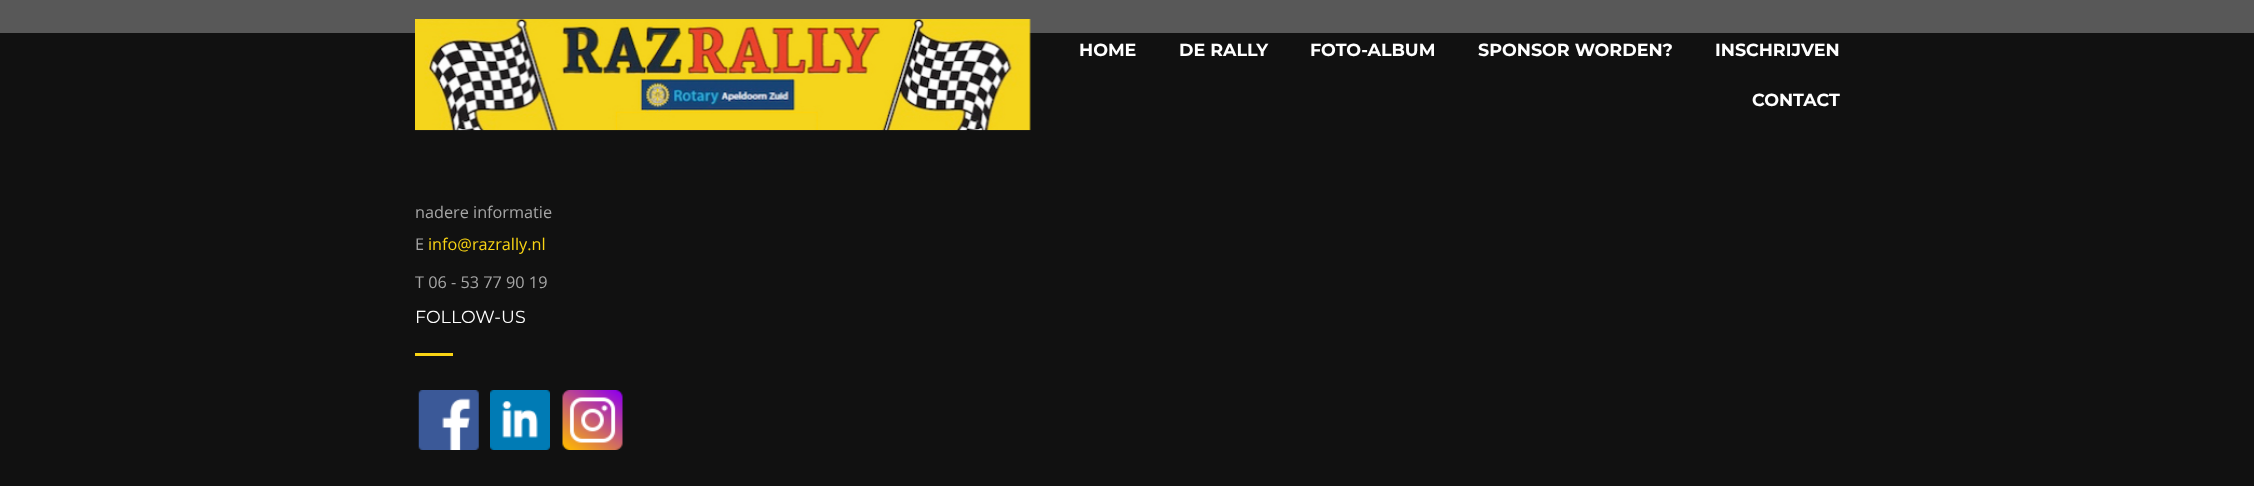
(async () => {
const canvas = document.querySelector("canvas")
canvas.width = 2254
canvas.height = 486
const c = canvas.getContext("2d")
c.miterLimit = 4
c.fontKerning = "normal"
function T(s,x,y){c.fillText(s,x,y)}
function R(x,y,w,h){c.fillRect(x,y,w,h)}
async function I(src,x,y,w,h){const img=new Image();img.src=src;await img.decode();c.drawImage(img,x,y,w,h)}
c.fillStyle="#fff"
R(0,0,2254,486)
c.fillStyle="#111111b3"
R(0,0,2254,33)
c.fillStyle="#111"
R(0,33,2254,453)
await I("1.png",415,19,616,112)
c.font="bold 17.5px Montserrat"
c.fillStyle="#fff"
T("HOME",1079,56)
T("DE RALLY",1179,56)
T("FOTO-ALBUM",1310,56)
T("SPONSOR WORDEN?",1478,56)
T("INSCHRIJVEN",1715,56)
T("CONTACT",1752,106)
c.font="16.25px Open Sans"
c.fillStyle="#a6a6a6"
T("nadere informatie",415,218)
T("E",415,250)
c.fillStyle="#f9d414"
T("info@razrally.nl",428,250)
c.fillStyle="#a6a6a6"
T("T 06 - 53 77 90 19",415,288)
c.font="17.5px Montserrat"
c.fillStyle="#fff"
T("FOLLOW-US",415,323)
c.fillStyle="#f9d414"
R(415,353,38,3)
await I("2.png",418,390,61,60)
await I("3.png",490,390,60,60)
await I("4.png",562,390,61,60)
})()
